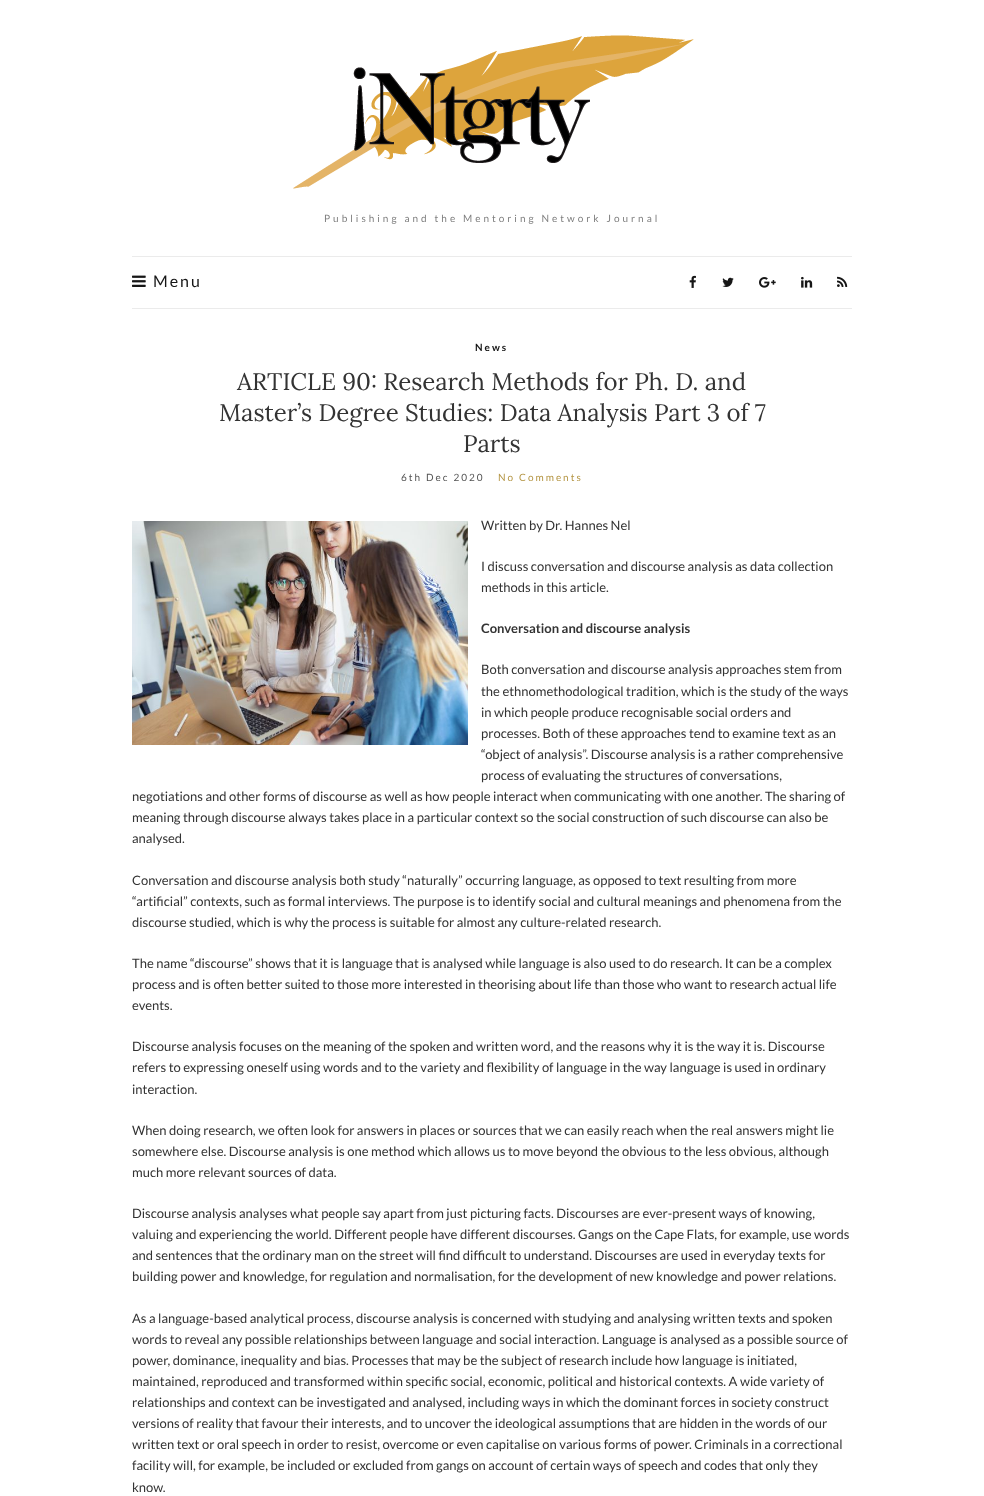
(async () => {
const canvas = document.querySelector("canvas")
canvas.width = 984
canvas.height = 1496
const c = canvas.getContext("2d")
c.miterLimit = 4
c.fontKerning = "normal"
function T(s,x,y){c.fillText(s,x,y)}
function R(x,y,w,h){c.fillRect(x,y,w,h)}
async function I(src,x,y,w,h){const img=new Image();img.src=src;await img.decode();c.drawImage(img,x,y,w,h)}
c.fillStyle="#fff"
R(0,0,984,1496)
await I("1.png",293,35,401,154)
c.letterSpacing="3px"
c.font="10px Lato"
c.fillStyle="#7e7e7e"
T("Publishing and the Mentoring Network Journal",324,222)
c.fillStyle="#ebebeb"
R(132,256,720,1)
R(132,308,720,1)
await I("2.png",132,275,14,12)
c.letterSpacing="2px"
c.font="16px Lato"
c.fillStyle="#161616"
T("Menu",153,287)
await I("3.png",689,275,7,13)
await I("4.png",722,277,12,10)
await I("5.png",759,277,17,11)
await I("6.png",801,276,12,12)
await I("7.png",837,276,11,11)
c.font="bold 10px Lato"
T("News",475,351)
c.letterSpacing="0px"
c.font="24px Lora"
c.fillStyle="#333"
T("ARTICLE 90: Research Methods for Ph. D. and",237,390)
T("Master’s Degree Studies: Data Analysis Part 3 of 7",219,421)
T("Parts",463,452)
c.letterSpacing="2px"
c.font="10px Lato"
c.fillStyle="#545454"
T("6th Dec 2020",401,481)
c.fillStyle="#b49543"
T("No Comments",498,481)
await I("8.png",132,521,336,224)
c.letterSpacing="0px"
c.font="13px Lato"
c.fillStyle="#333"
T("Written by Dr. Hannes Nel",481,530)
T("I discuss conversation and discourse analysis as data collection",481,571)
T("methods in this article.",481,592)
c.font="bold 13px Lato"
T("Conversation and discourse analysis",481,633)
c.font="13px Lato"
T("Both conversation and discourse analysis approaches stem from",481,674)
T("the ethnomethodological tradition, which is the study of the ways",481,696)
T("in which people produce recognisable social orders and",481,717)
T("processes. Both of these approaches tend to examine text as an",481,738)
T("“object of analysis”. Discourse analysis is a rather comprehensive",481,759)
T("process of evaluating the structures of conversations,",481,780)
T("negotiations and other forms of discourse as well as how people interact when communicating with one another. The sharing of",132,801)
T("meaning through discourse always takes place in a particular context so the social construction of such discourse can also be",132,822)
T("analysed.",132,843)
T("Conversation and discourse analysis both study “naturally” occurring language, as opposed to text resulting from more",132,885)
T("“artificial” contexts, such as formal interviews. The purpose is to identify social and cultural meanings and phenomena from the",132,906)
T("discourse studied, which is why the process is suitable for almost any culture-related research.",132,927)
T("The name “discourse” shows that it is language that is analysed while language is also used to do research. It can be a complex",132,968)
T("process and is often better suited to those more interested in theorising about life than those who want to research actual life",132,989)
T("events.",132,1010)
T("Discourse analysis focuses on the meaning of the spoken and written word, and the reasons why it is the way it is. Discourse",132,1051)
T("refers to expressing oneself using words and to the variety and flexibility of language in the way language is used in ordinary",132,1072)
T("interaction.",132,1094)
T("When doing research, we often look for answers in places or sources that we can easily reach when the real answers might lie",132,1135)
T("somewhere else. Discourse analysis is one method which allows us to move beyond the obvious to the less obvious, although",132,1156)
T("much more relevant sources of data.",132,1177)
T("Discourse analysis analyses what people say apart from just picturing facts. Discourses are ever-present ways of knowing,",132,1218)
T("valuing and experiencing the world. Different people have different discourses. Gangs on the Cape Flats, for example, use words",132,1239)
T("and sentences that the ordinary man on the street will find difficult to understand. Discourses are used in everyday texts for",132,1260)
T("building power and knowledge, for regulation and normalisation, for the development of new knowledge and power relations.",132,1281)
T("As a language-based analytical process, discourse analysis is concerned with studying and analysing written texts and spoken",132,1323)
T("words to reveal any possible relationships between language and social interaction. Language is analysed as a possible source of",132,1344)
T("power, dominance, inequality and bias. Processes that may be the subject of research include how language is initiated,",132,1365)
T("maintained, reproduced and transformed within specific social, economic, political and historical contexts. A wide variety of",132,1386)
T("relationships and context can be investigated and analysed, including ways in which the dominant forces in society construct",132,1407)
T("versions of reality that favour their interests, and to uncover the ideological assumptions that are hidden in the words of our",132,1428)
T("written text or oral speech in order to resist, overcome or even capitalise on various forms of power. Criminals in a correctional",132,1449)
T("facility will, for example, be included or excluded from gangs on account of certain ways of speech and codes that only they",132,1470)
T("know.",132,1492)
})()
